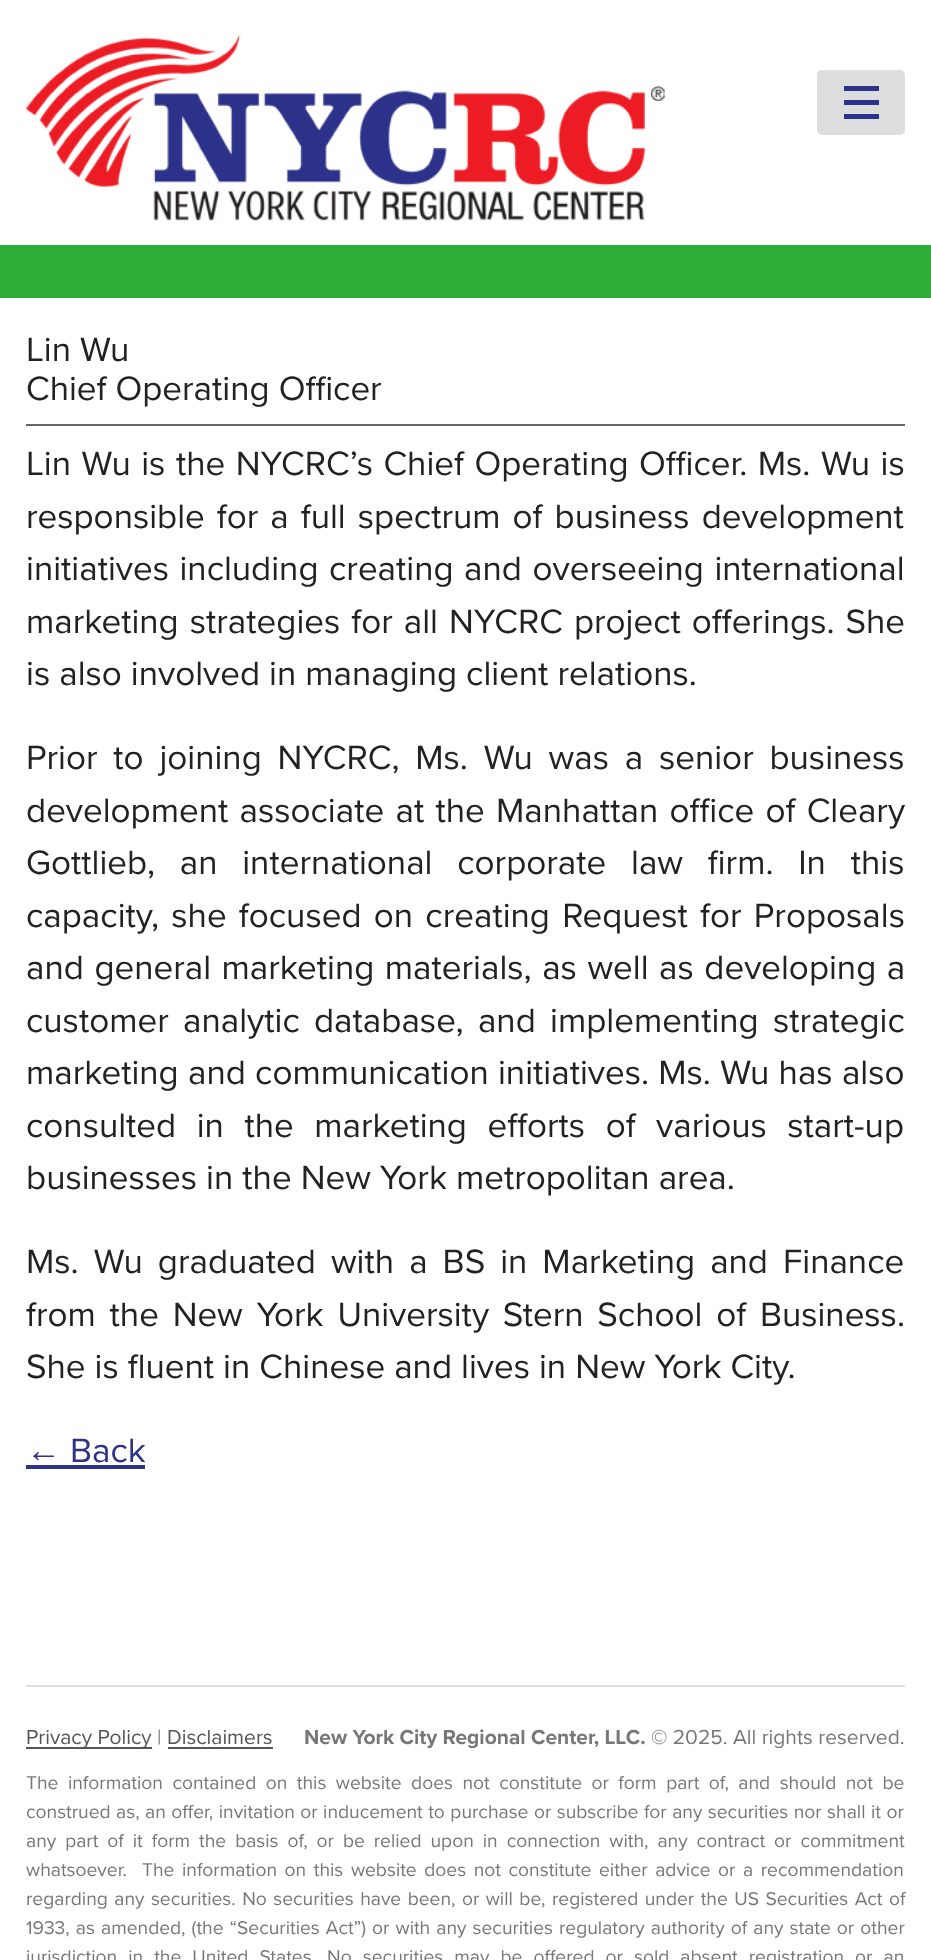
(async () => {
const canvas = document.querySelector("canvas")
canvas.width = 931
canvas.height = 1960
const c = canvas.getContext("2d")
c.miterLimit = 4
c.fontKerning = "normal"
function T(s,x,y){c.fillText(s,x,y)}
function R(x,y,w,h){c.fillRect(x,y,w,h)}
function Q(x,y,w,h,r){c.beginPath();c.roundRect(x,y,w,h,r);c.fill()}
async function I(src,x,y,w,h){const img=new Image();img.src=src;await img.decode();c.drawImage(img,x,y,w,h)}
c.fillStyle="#fff"
R(0,0,931,1960)
await I("1.png",26,35,639,186)
c.fillStyle="#ddd"
Q(817,70,88,65,5)
c.fillStyle="#2c3289"
R(844,86,35,5)
R(844,100,35,5)
R(844,114,35,5)
c.fillStyle="#2dac36"
R(0,245,931,53)
c.fillStyle="#666"
R(26,424,879,2)
c.font="35px Proxima Nova"
c.fillStyle="#222"
T("Lin Wu",26,361)
T("Chief Operating Officer",26,400)
c.wordSpacing="1.5px"
T("Lin Wu is the NYCRC’s Chief Operating Officer. Ms. Wu is",26,475)
c.wordSpacing="3px"
T("responsible for a full spectrum of business development",26,528)
c.wordSpacing="1.5px"
T("initiatives including creating and overseeing international",26,580)
c.wordSpacing="2px"
T("marketing strategies for all NYCRC project offerings. She",26,633)
c.wordSpacing="0px"
T("is also involved in managing client relations.",26,685)
c.wordSpacing="6.75px"
T("Prior to joining NYCRC, Ms. Wu was a senior business",26,769)
c.wordSpacing="2.25px"
T("development associate at the Manhattan office of Cleary",26,822)
c.wordSpacing="15.75px"
T("Gottlieb, an international corporate law firm. In this",26,874)
c.wordSpacing="3.25px"
T("capacity, she focused on creating Request for Proposals",26,927)
c.wordSpacing="1.5px"
T("and general marketing materials, as well as developing a",26,979)
c.wordSpacing="5.25px"
T("customer analytic database, and implementing strategic",26,1032)
c.wordSpacing="0.25px"
T("marketing and communication initiatives. Ms. Wu has also",26,1084)
c.wordSpacing="11.5px"
T("consulted in the marketing efforts of various start-up",26,1137)
c.wordSpacing="0px"
T("businesses in the New York metropolitan area.",26,1189)
c.wordSpacing="6px"
T("Ms. Wu graduated with a BS in Marketing and Finance",26,1273)
c.wordSpacing="4.75px"
T("from the New York University Stern School of Business.",26,1326)
c.wordSpacing="0px"
T("She is fluent in Chinese and lives in New York City.",26,1378)
c.font="35px Liberation Sans"
c.fillStyle="#2d3287"
T("←",26,1462)
R(26,1465,119,4)
c.font="35px Proxima Nova"
T("Back",70,1462)
c.fillStyle="#ddd"
R(26,1685,879,2)
c.fillStyle="#555"
R(26,1747,126,2)
c.font="21px Proxima Nova"
T("Privacy Policy",26,1744)
c.fillStyle="#777"
T("|",157,1744)
c.fillStyle="#555"
T("Disclaimers",167,1744)
R(168,1747,105,2)
c.font="bold 21px Proxima Nova"
c.fillStyle="#777"
T("New York City Regional Center, LLC.",304,1744)
c.font="21px Proxima Nova"
T("© 2025. All rights reserved.",651,1744)
c.wordSpacing="4.5px"
c.font="19.25px Proxima Nova"
T("The information contained on this website does not constitute or form part of, and should not be",26,1789)
c.wordSpacing="0.5px"
T("construed as, an offer, invitation or inducement to purchase or subscribe for any securities nor shall it or",26,1818)
c.wordSpacing="4px"
T("any part of it form the basis of, or be relied upon in connection with, any contract or commitment",26,1847)
c.wordSpacing="2.6px"
T("whatsoever.  The information on this website does not constitute either advice or a recommendation",26,1876)
c.wordSpacing="1.5px"
T("regarding any securities. No securities have been, or will be, registered under the US Securities Act of",26,1905)
c.wordSpacing="1.1px"
T("1933, as amended, (the “Securities Act”) or with any securities regulatory authority of any state or other",26,1934)
c.wordSpacing="6.1px"
T("jurisdiction in the United States. No securities may be offered or sold absent registration or an",26,1963)
})()
